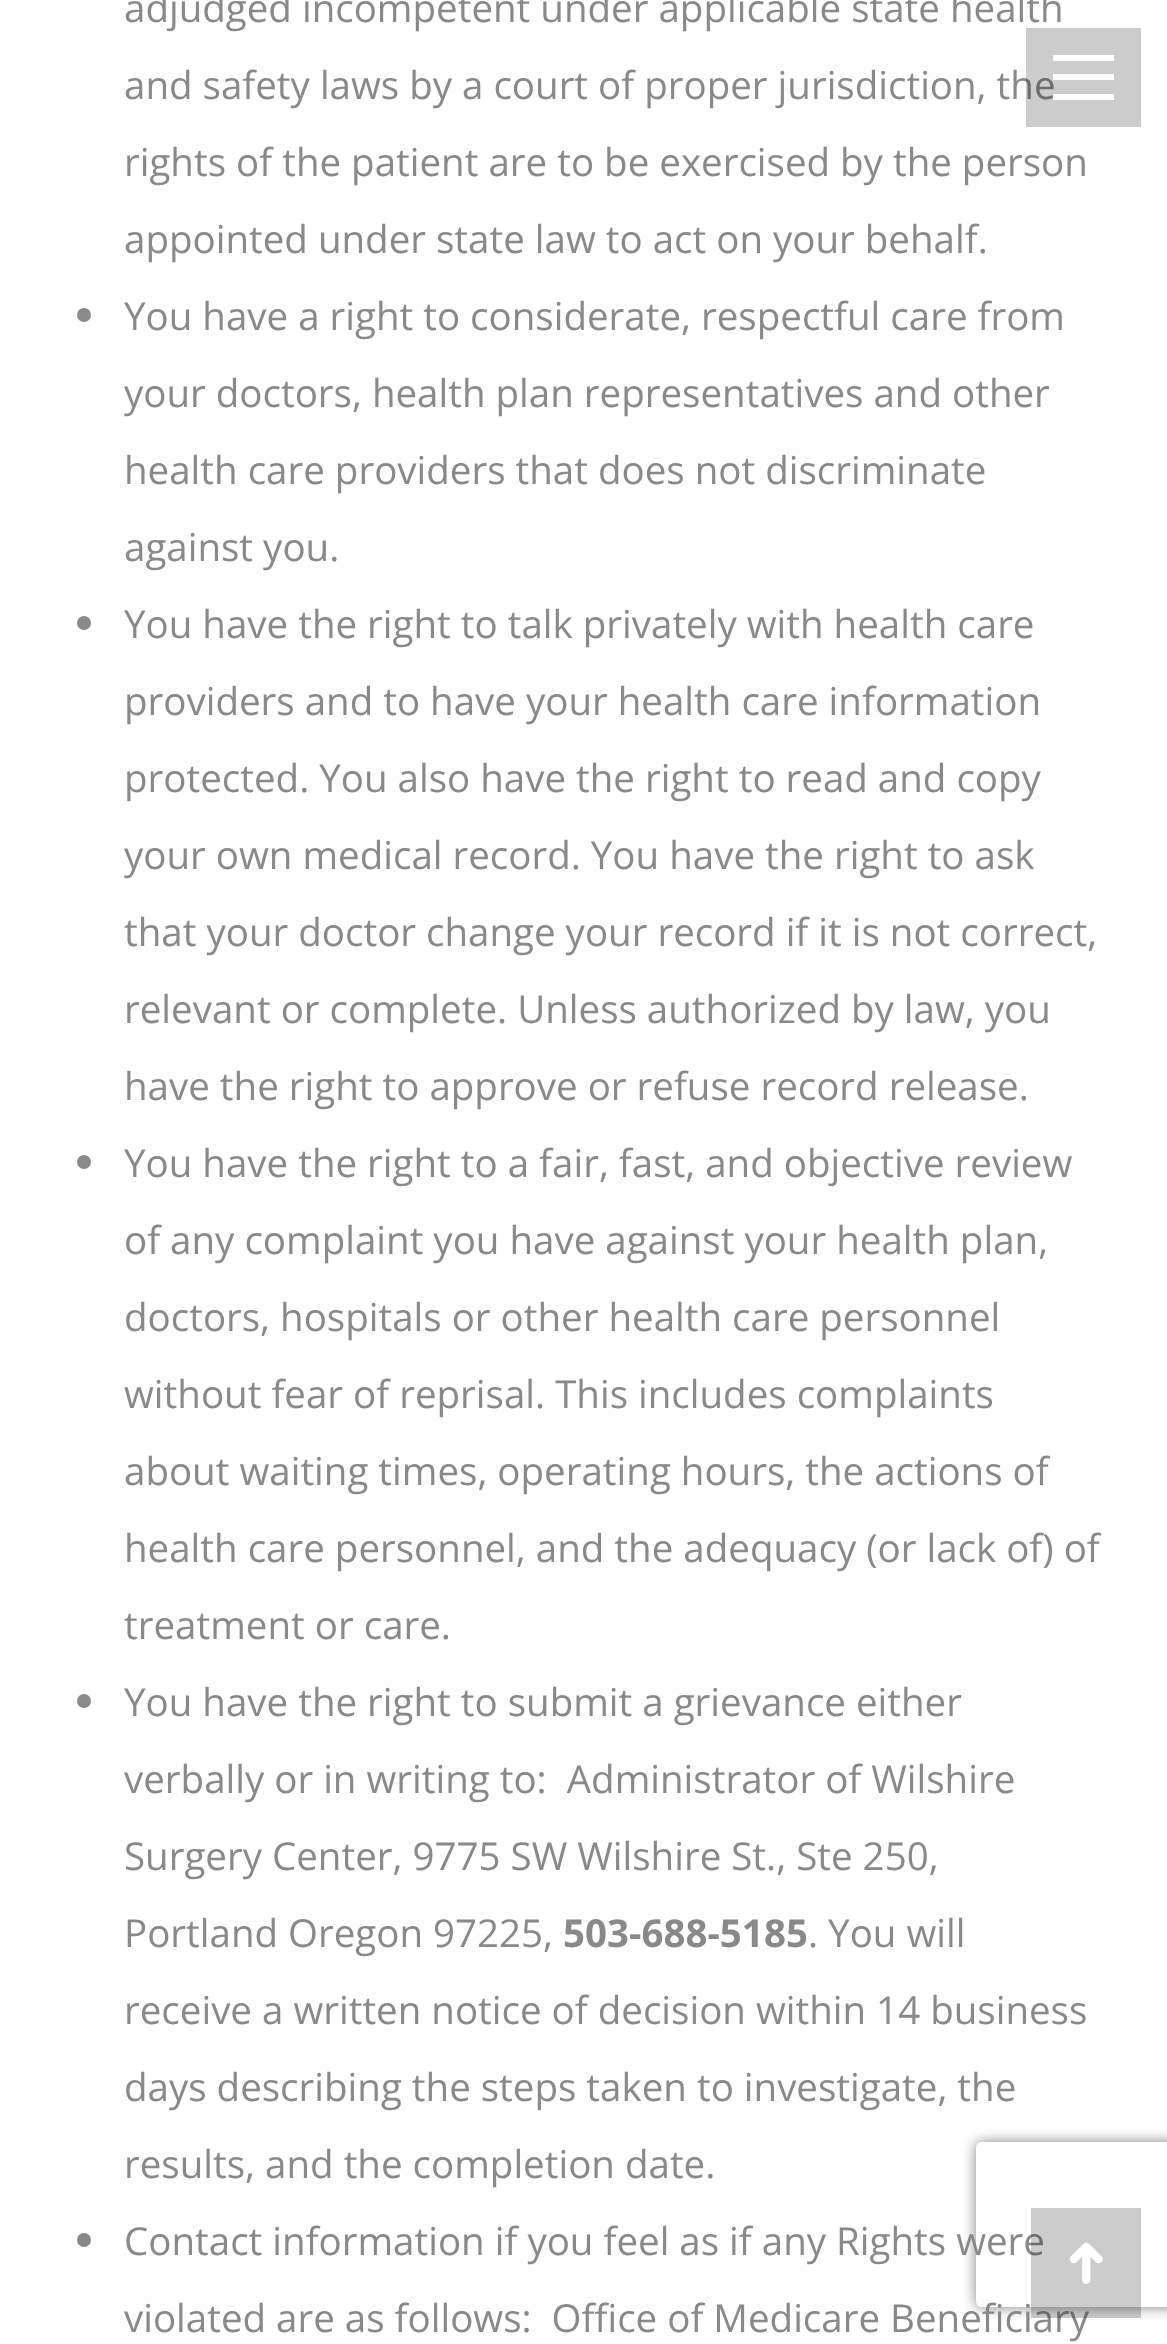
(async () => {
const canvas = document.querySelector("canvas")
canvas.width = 1167
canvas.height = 2344
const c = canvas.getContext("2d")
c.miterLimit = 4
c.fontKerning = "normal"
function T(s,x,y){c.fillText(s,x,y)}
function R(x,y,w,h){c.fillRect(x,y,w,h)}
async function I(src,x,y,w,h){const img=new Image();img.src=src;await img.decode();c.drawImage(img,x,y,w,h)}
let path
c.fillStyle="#fff"
R(0,0,1167,2344)
c.font="38.5px Open Sans"
c.fillStyle="#898989"
T("adjudged incompetent under applicable state health",124,22)
T("and safety laws by a court of proper jurisdiction, the",124,99)
T("rights of the patient are to be exercised by the person",124,176)
T("appointed under state law to act on your behalf.",124,253)
c.beginPath()
c.arc(84,315,7,0,7)
c.fill()
T("You have a right to considerate, respectful care from",124,330)
T("your doctors, health plan representatives and other",124,407)
T("health care providers that does not discriminate",124,484)
T("against you.",124,561)
c.beginPath()
c.arc(84,623,7,0,7)
c.fill()
T("You have the right to talk privately with health care",124,638)
T("providers and to have your health care information",124,715)
T("protected. You also have the right to read and copy",124,792)
T("your own medical record. You have the right to ask",124,869)
T("that your doctor change your record if it is not correct,",124,946)
T("relevant or complete. Unless authorized by law, you",124,1023)
T("have the right to approve or refuse record release.",124,1100)
c.beginPath()
c.arc(84,1162,7,0,7)
c.fill()
T("You have the right to a fair, fast, and objective review",124,1177)
T("of any complaint you have against your health plan,",124,1254)
T("doctors, hospitals or other health care personnel",124,1331)
T("without fear of reprisal. This includes complaints",124,1408)
T("about waiting times, operating hours, the actions of",124,1485)
T("health care personnel, and the adequacy (or lack of) of",124,1562)
T("treatment or care.",124,1639)
c.beginPath()
c.arc(84,1701,7,0,7)
c.fill()
T("You have the right to submit a grievance either",124,1716)
T("verbally or in writing to:  Administrator of Wilshire",124,1793)
T("Surgery Center, 9775 SW Wilshire St., Ste 250,",124,1870)
T("Portland Oregon 97225,",124,1947)
c.font="bold 38.5px Open Sans"
T("503-688-5185",563,1947)
c.font="38.5px Open Sans"
T(". You will",808,1947)
T("receive a written notice of decision within 14 business",124,2024)
T("days describing the steps taken to investigate, the",124,2101)
T("results, and the completion date.",124,2178)
c.beginPath()
c.arc(84,2240,7,0,7)
c.fill()
T("Contact information if you feel as if any Rights were",124,2255)
T("violated are as follows:  Office of Medicare Beneficiary",124,2332)
c.fillStyle="#00000033"
R(1026,28,115,99)
c.fillStyle="#fff"
R(1053,55,61,6)
R(1053,74,61,6)
R(1053,94,61,6)
c.save()
path = new Path2D("M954 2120h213v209h-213zm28 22h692c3.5 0 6 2.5 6 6v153c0 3.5-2.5 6-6 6h-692c-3.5 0-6-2.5-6-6v-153c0-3.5 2.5-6 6-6z")
c.clip(path,"evenodd")
c.fillStyle="#808080"
c.filter="blur(7px)"
c.beginPath()
c.roundRect(976,2142,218,165,6)
c.fill()
c.filter="none"
c.restore()
c.fillStyle="#00000033"
R(1031,2208,110,110)
await I("1.png",1069,2242,34,42)
})()
